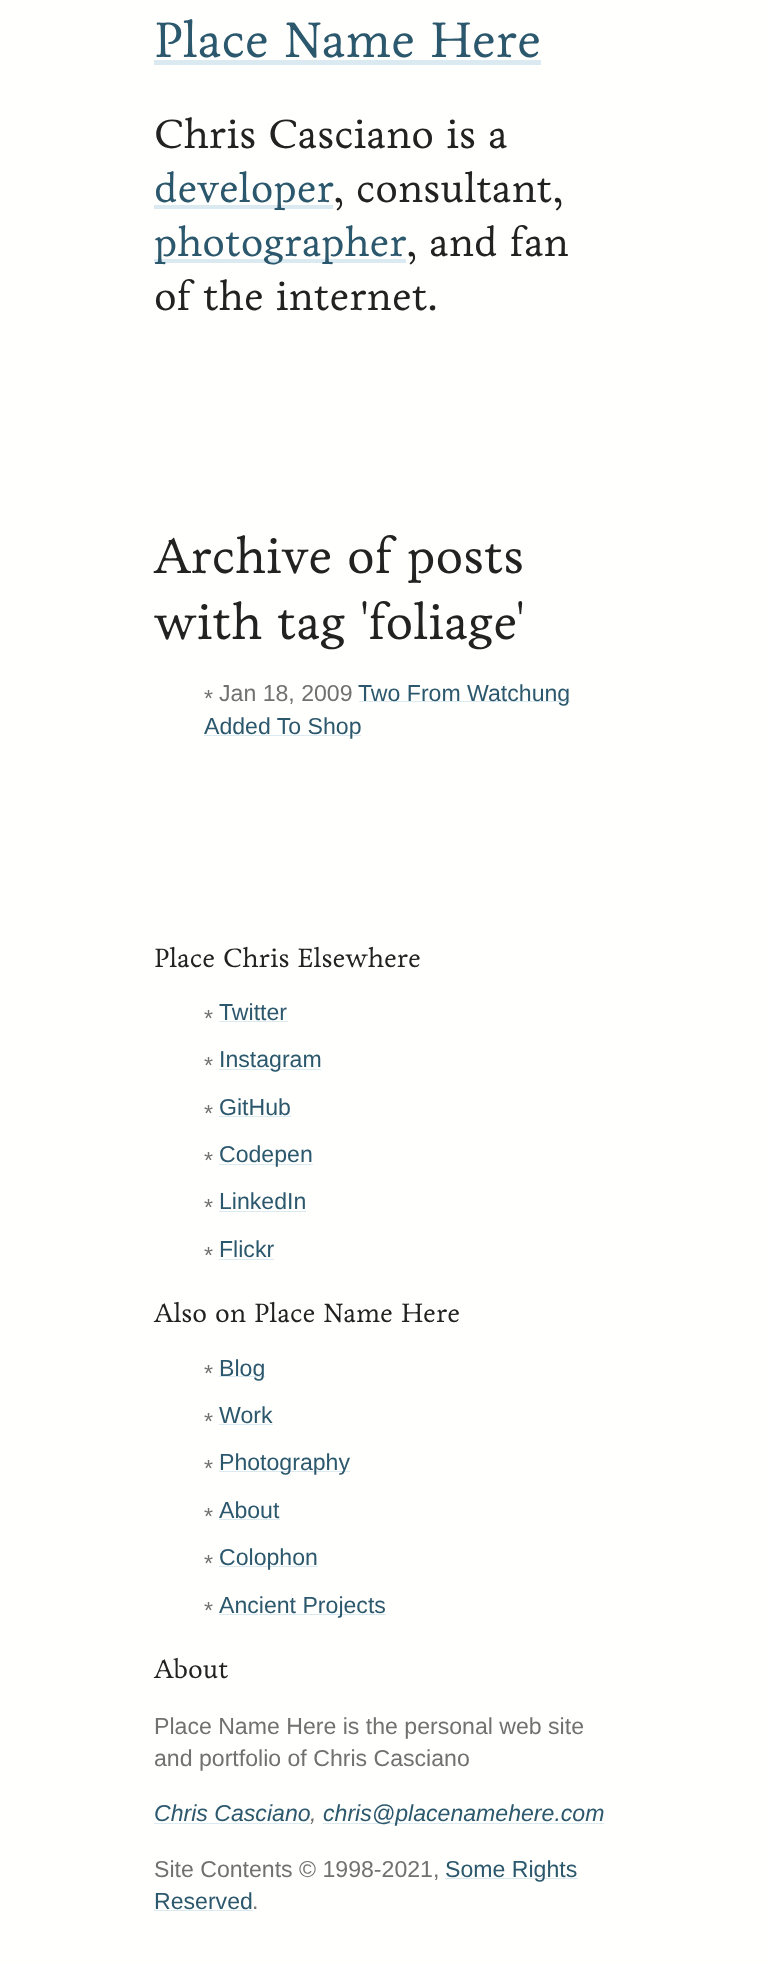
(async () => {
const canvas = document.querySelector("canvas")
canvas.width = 768
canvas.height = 1965
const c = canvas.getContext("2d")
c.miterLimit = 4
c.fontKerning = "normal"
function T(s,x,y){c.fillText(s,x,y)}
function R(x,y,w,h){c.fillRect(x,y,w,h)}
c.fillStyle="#fffffd"
R(0,0,768,1965)
c.font="50.75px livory"
c.fillStyle="#2c586d"
T("Place Name Here",154,57)
c.fillStyle="#dbe9f0"
R(154,60,387,5)
c.font="41.5px livory"
c.fillStyle="#222"
T("Chris Casciano is a",154,148)
c.fillStyle="#dbe9f0"
R(154,205,179,4)
c.fillStyle="#2c586d"
T("developer",154,202)
c.fillStyle="#222"
T(", consultant,",333,202)
c.fillStyle="#dbe9f0"
R(154,259,252,4)
c.fillStyle="#2c586d"
T("photographer",154,256)
c.fillStyle="#222"
T(", and fan",406,256)
T("of the internet.",154,310)
c.font="50.75px livory"
T("Archive of posts",154,573)
T("with tag 'foliage'",154,639)
c.font="23.1px Liberation Sans"
c.fillStyle="#717171"
T("*",204,706)
T("Jan 18, 2009",219,701)
c.fillStyle="#dbe9f0"
R(359,701,211,1)
c.fillStyle="#2c586d"
T("Two From Watchung",358,701)
c.fillStyle="#dbe9f0"
R(204,735,157,1)
c.fillStyle="#2c586d"
T("Added To Shop",204,734)
c.font="27px livory"
c.fillStyle="#222"
T("Place Chris Elsewhere",154,967)
c.font="23.1px Liberation Sans"
c.fillStyle="#717171"
T("*",204,1026)
c.fillStyle="#2c586d"
T("Twitter",219,1020)
c.fillStyle="#dbe9f0"
R(219,1021,69,1)
c.fillStyle="#717171"
T("*",204,1073)
c.fillStyle="#dbe9f0"
R(219,1069,102,1)
c.fillStyle="#2c586d"
T("Instagram",219,1067)
c.fillStyle="#717171"
T("*",204,1121)
c.fillStyle="#2c586d"
T("GitHub",219,1115)
c.fillStyle="#dbe9f0"
R(219,1116,72,1)
c.fillStyle="#717171"
T("*",204,1168)
c.fillStyle="#dbe9f0"
R(219,1164,94,1)
c.fillStyle="#2c586d"
T("Codepen",219,1162)
c.fillStyle="#717171"
T("*",204,1215)
c.fillStyle="#2c586d"
T("LinkedIn",219,1209)
c.fillStyle="#dbe9f0"
R(219,1211,87,1)
c.fillStyle="#717171"
T("*",204,1263)
c.fillStyle="#2c586d"
T("Flickr",219,1257)
c.fillStyle="#dbe9f0"
R(219,1259,55,1)
c.font="27px livory"
c.fillStyle="#222"
T("Also on Place Name Here",154,1322)
c.font="23.1px Liberation Sans"
c.fillStyle="#717171"
T("*",204,1381)
c.fillStyle="#dbe9f0"
R(219,1376,46,1)
c.fillStyle="#2c586d"
T("Blog",219,1376)
c.fillStyle="#717171"
T("*",204,1429)
c.fillStyle="#2c586d"
T("Work",219,1423)
c.fillStyle="#dbe9f0"
R(219,1424,54,1)
c.fillStyle="#717171"
T("*",204,1476)
c.fillStyle="#dbe9f0"
R(219,1471,131,1)
c.fillStyle="#2c586d"
T("Photography",219,1470)
c.fillStyle="#717171"
T("*",204,1524)
c.fillStyle="#2c586d"
T("About",219,1518)
c.fillStyle="#dbe9f0"
R(219,1519,61,1)
c.fillStyle="#717171"
T("*",204,1571)
c.fillStyle="#dbe9f0"
R(219,1566,99,1)
c.fillStyle="#2c586d"
T("Colophon",219,1565)
c.fillStyle="#717171"
T("*",204,1618)
c.fillStyle="#dbe9f0"
R(219,1614,167,1)
c.fillStyle="#2c586d"
T("Ancient Projects",219,1613)
c.font="27px livory"
c.fillStyle="#222"
T("About",154,1678)
c.font="23.1px Liberation Sans"
c.fillStyle="#717171"
T("Place Name Here is the personal web site",154,1734)
T("and portfolio of Chris Casciano",154,1766)
c.font="italic 23.1px Liberation Sans"
c.fillStyle="#2c586d"
T("Chris Casciano",154,1821)
c.fillStyle="#dbe9f0"
R(154,1823,156,1)
c.fillStyle="#717171"
T(",",310,1821)
c.fillStyle="#dbe9f0"
R(323,1823,281,1)
c.fillStyle="#2c586d"
T("chris@placenamehere.com",323,1821)
c.font="23.1px Liberation Sans"
c.fillStyle="#717171"
T("Site Contents © 1998-2021,",154,1877)
c.fillStyle="#dbe9f0"
R(445,1878,133,1)
c.fillStyle="#2c586d"
T("Some Rights",445,1877)
T("Reserved",154,1909)
c.fillStyle="#dbe9f0"
R(154,1910,99,1)
c.fillStyle="#717171"
T(".",252,1909)
})()
